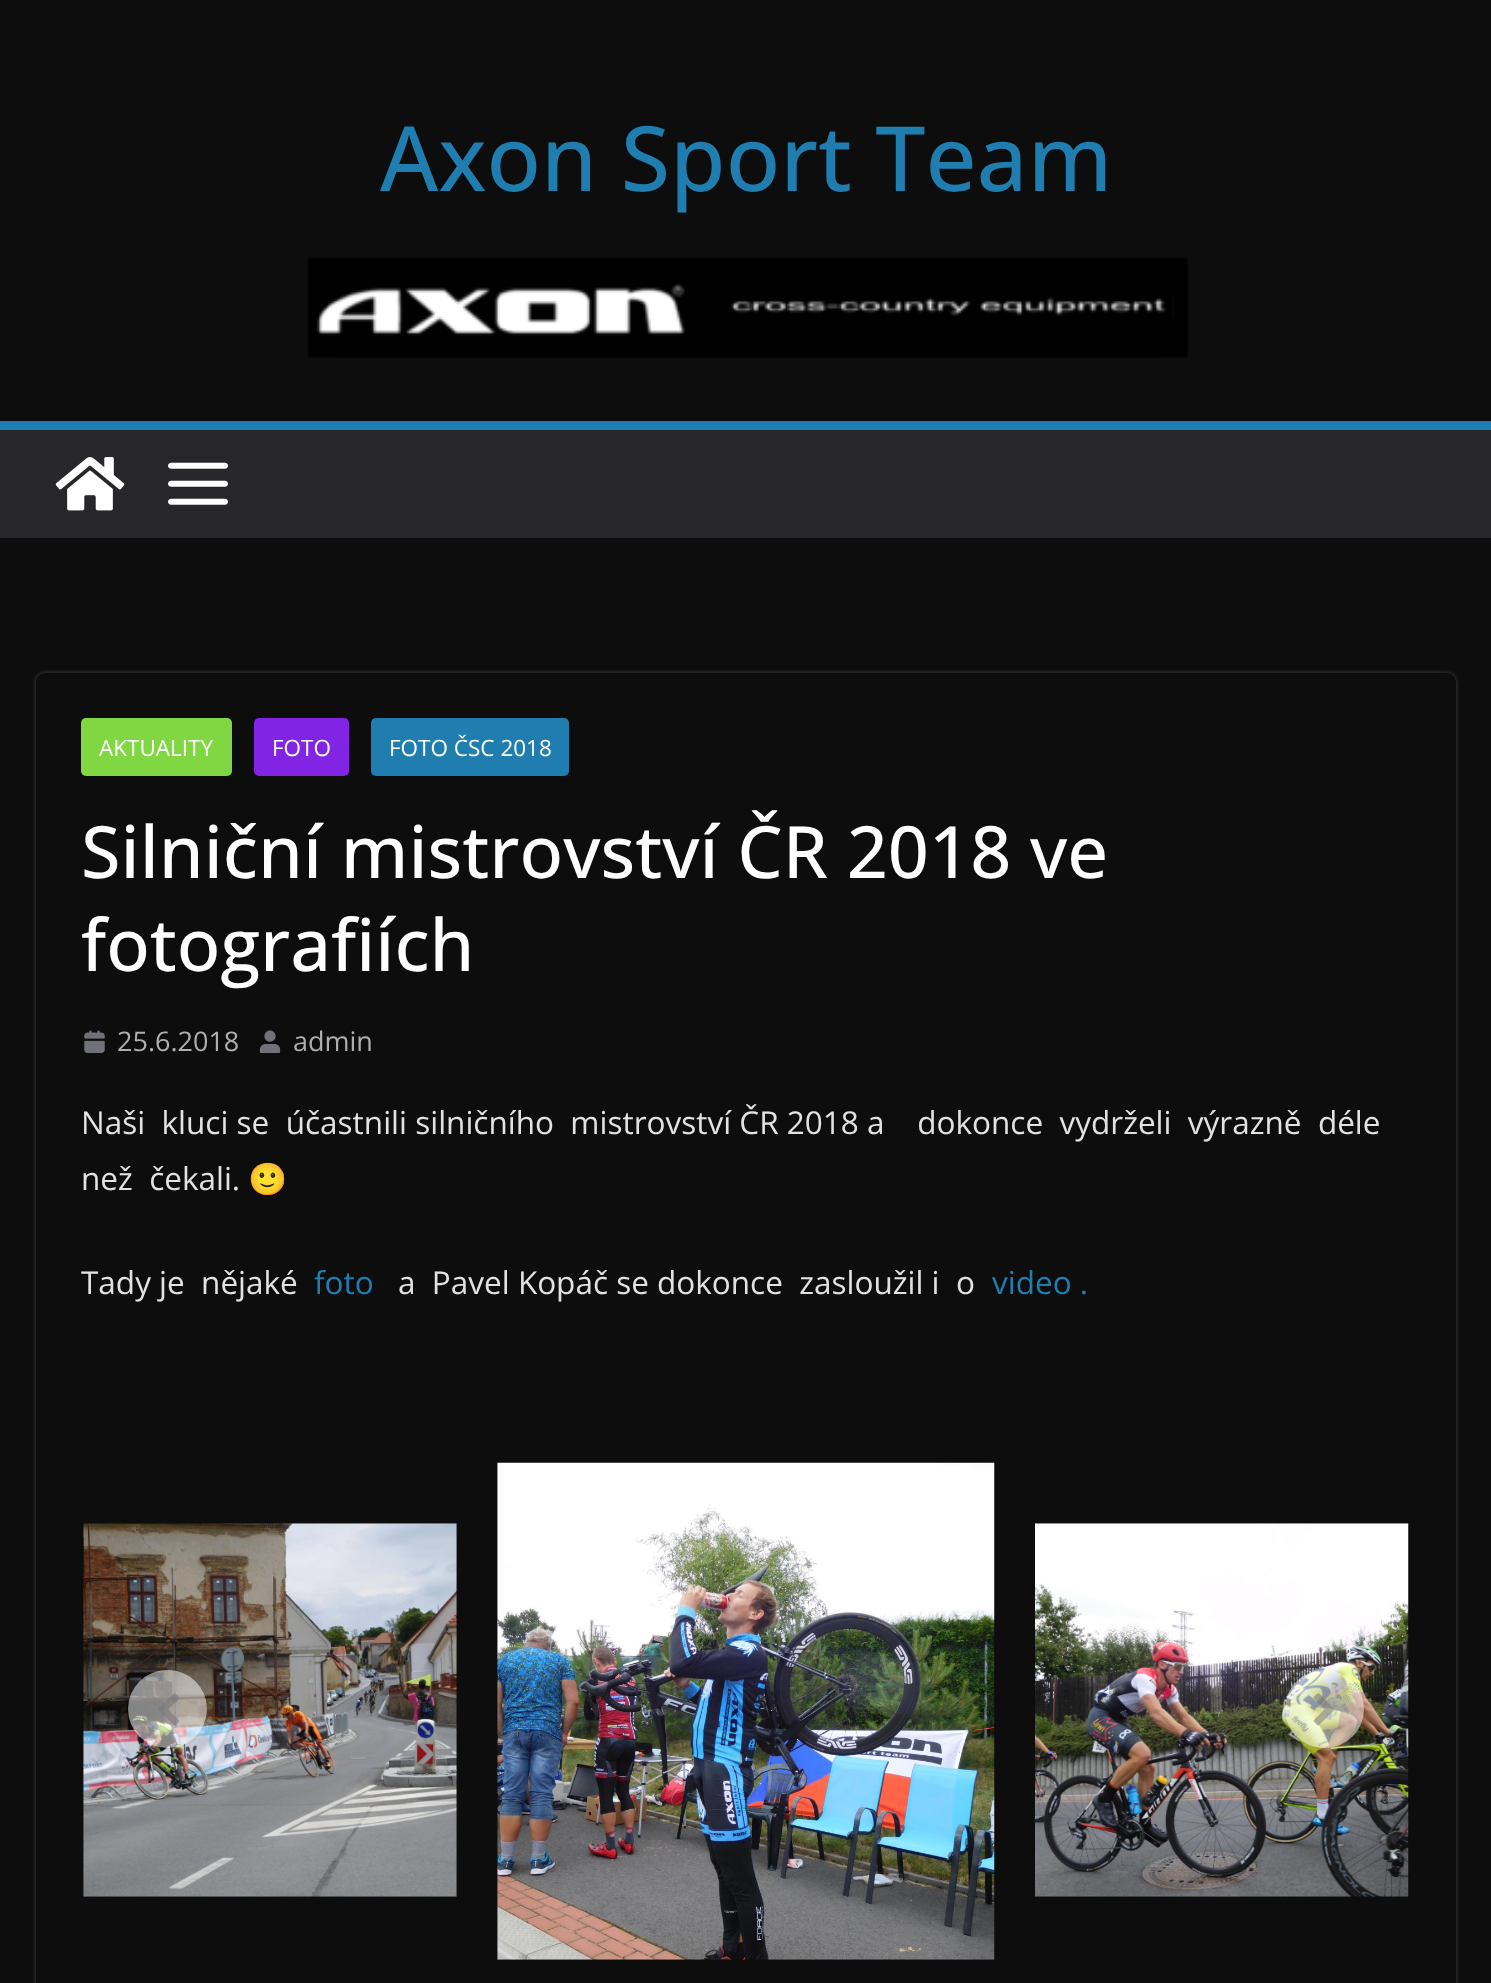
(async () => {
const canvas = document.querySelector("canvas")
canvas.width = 1491
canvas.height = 1983
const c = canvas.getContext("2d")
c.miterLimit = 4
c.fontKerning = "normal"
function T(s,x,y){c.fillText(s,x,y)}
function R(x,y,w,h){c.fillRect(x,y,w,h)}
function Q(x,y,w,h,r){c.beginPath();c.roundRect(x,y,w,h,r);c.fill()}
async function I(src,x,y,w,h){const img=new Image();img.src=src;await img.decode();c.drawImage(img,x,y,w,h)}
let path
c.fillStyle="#0d0d0d"
R(0,0,1491,1983)
c.font="500 90px Open Sans"
c.fillStyle="#207daf"
T("Axon Sport Team",380,191)
await I("1.png",307,257,881,101)
c.fillStyle="#27272a"
R(0,430,1491,108)
c.fillStyle="#207daf"
R(0,421,1491,9)
await I("2.png",55,457,70,54)
await I("3.png",168,462,60,43)
c.save()
path = new Path2D("M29 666h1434v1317h-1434zm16 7h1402c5 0 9 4 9 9v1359c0 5-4 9-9 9h-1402c-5 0-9-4-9-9v-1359c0-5 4-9 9-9z")
c.clip(path,"evenodd")
c.fillStyle="#ffffff3d"
c.filter="blur(2px)"
c.beginPath()
c.roundRect(36,673,1420,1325,9)
c.fill()
c.filter="none"
c.restore()
c.fillStyle="#81d742"
Q(81,718,151,58,5)
c.font="22.5px Open Sans"
c.fillStyle="#fff"
T("AKTUALITY",99,756)
c.fillStyle="#8224e3"
Q(254,718,95,58,5)
c.fillStyle="#fff"
T("FOTO",272,756)
c.fillStyle="#207daf"
Q(371,718,198,58,5)
c.fillStyle="#fff"
T("FOTO ČSC 2018",389,756)
c.font="500 72px Open Sans"
T("Silniční mistrovství ČR 2018 ve",81,878)
T("fotografiích",81,971)
await I("4.png",84,1030,21,23)
c.font="27px Open Sans"
c.fillStyle="#aeaeae"
T("25.6.2018",117,1051)
await I("5.png",259,1030,22,23)
T("admin",293,1051)
c.font="31.5px Open Sans"
c.fillStyle="#e3e2e2"
T("Naši  kluci se  účastnili silničního  mistrovství ČR 2018 a    dokonce  vydrželi  výrazně  déle",81,1134)
T("než  čekali.",81,1190)
c.font="31.5px Noto Color Emoji"
T("🙂",248,1190)
c.font="31.5px Open Sans"
T("Tady je  nějaké",81,1294)
c.fillStyle="#207daf"
T("foto",314,1294)
c.fillStyle="#e3e2e2"
T("a  Pavel Kopáč se dokonce  zasloužil i  o",398,1294)
c.fillStyle="#207daf"
T("video .",992,1294)
await I("6.png",83,1523,374,374)
await I("7.png",497,1462,498,498)
await I("8.png",1035,1523,374,374)
c.fillStyle="#ffffff80"
Q(128,1670,79,78,39)
await I("9.png",158,1693,21,33)
Q(1285,1670,79,78,39)
await I("10.png",1313,1693,22,33)
})()
